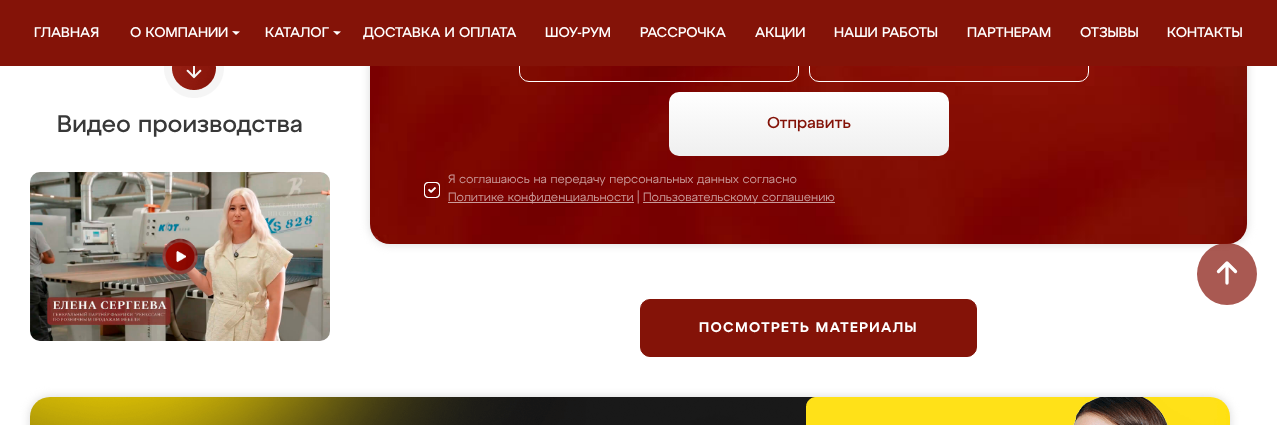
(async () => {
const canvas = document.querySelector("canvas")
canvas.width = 1277
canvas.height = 425
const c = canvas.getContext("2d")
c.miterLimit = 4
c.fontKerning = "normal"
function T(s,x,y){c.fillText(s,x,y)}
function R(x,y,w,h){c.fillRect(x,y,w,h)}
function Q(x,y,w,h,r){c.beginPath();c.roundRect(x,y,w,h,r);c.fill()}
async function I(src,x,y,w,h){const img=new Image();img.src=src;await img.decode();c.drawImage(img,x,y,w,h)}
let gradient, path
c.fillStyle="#fff"
R(0,0,1277,425)
c.fillStyle="#d9d9d9"
c.filter="blur(5px)"
c.beginPath()
c.roundRect(370,-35,877,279,20)
c.fill()
c.filter="none"
await I("3.png",370,66,877,178)
c.beginPath()
c.roundRect(519.5,19.5,279,62,9.5)
c.strokeStyle="#fff"
c.stroke()
c.beginPath()
c.roundRect(809.5,19.5,279,62,9.5)
c.stroke()
c.fillStyle="#841308"
R(0,0,1277,66)
c.font="500 14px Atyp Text"
c.fillStyle="#fff"
T("ГЛАВНАЯ",34,37)
T("О КОМПАНИИ",130,37)
path = new Path2D("M236 35l-4-4l8 .5z")
c.fill(path)
T("КАТАЛОГ",265,37)
path = new Path2D("M337 35l-4-4l8 .5z")
c.fill(path)
T("ДОСТАВКА И ОПЛАТА",363,37)
T("ШОУ-РУМ",545,37)
T("РАССРОЧКА",640,37)
T("АКЦИИ",755,37)
T("НАШИ РАБОТЫ",834,37)
T("ПАРТНЕРАМ",967,37)
T("ОТЗЫВЫ",1080,37)
T("КОНТАКТЫ",1167,37)
await I("1.png",164,66,60,32)
c.font="500 24px Atyp Text"
c.fillStyle="#383838"
T("Видео производства",57,132)
await I("2.png",30,172,300,169)
gradient = c.createLinearGradient(809,92,809,156)
gradient.addColorStop(0,"#fff")
gradient.addColorStop(1,"#efefef")
c.fillStyle = gradient
Q(669,92,280,64,10)
c.font="500 16px Atyp Text"
c.fillStyle="#841308"
T("Отправить",767,128)
c.font="12px Atyp Text"
c.fillStyle="#ca9a99"
T("Я соглашаюсь на передачу персональных данных согласно",448,183)
c.beginPath()
c.roundRect(424.5,182.5,15,15,3.5)
c.stroke()
await I("4.png",424,182,16,16)
c.fillStyle="#ffffff99"
R(448,202,186,1)
c.fillStyle="#ca9a99"
T("Политике конфиденциальности",448,201)
T("|",637,201)
c.fillStyle="#ffffff99"
R(643,202,192,1)
c.fillStyle="#ca9a99"
T("Пользовательскому соглашению",643,201)
c.fillStyle="#841308"
c.beginPath()
c.roundRect(640.5,299.5,336,57,9.5)
c.fill()
c.strokeStyle="#841308"
c.stroke()
c.letterSpacing="1.4px"
c.font="600 14px Atyp Text"
c.fillStyle="#fff"
T("ПОСМОТРЕТЬ МАТЕРИАЛЫ",699,332)
c.fillStyle="#d9d9d9"
c.filter="blur(5px)"
c.beginPath()
c.roundRect(30,397,1200,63,20)
c.fill()
c.filter="none"
await I("5.png",30,397,1200,28)
await I("6.png",1073,397,95,28)
c.fillStyle="#841308b3"
c.beginPath()
c.ellipse(1227,274,30,31,0,0,7)
c.fill()
path = new Path2D("M1227 263v20m0-20l-8.5 8.5m8.5-8.5l8.5 8.5")
c.strokeStyle="#fff"
c.lineWidth=3.3
c.lineCap="round"
c.lineJoin="round"
c.stroke(path)
})()
